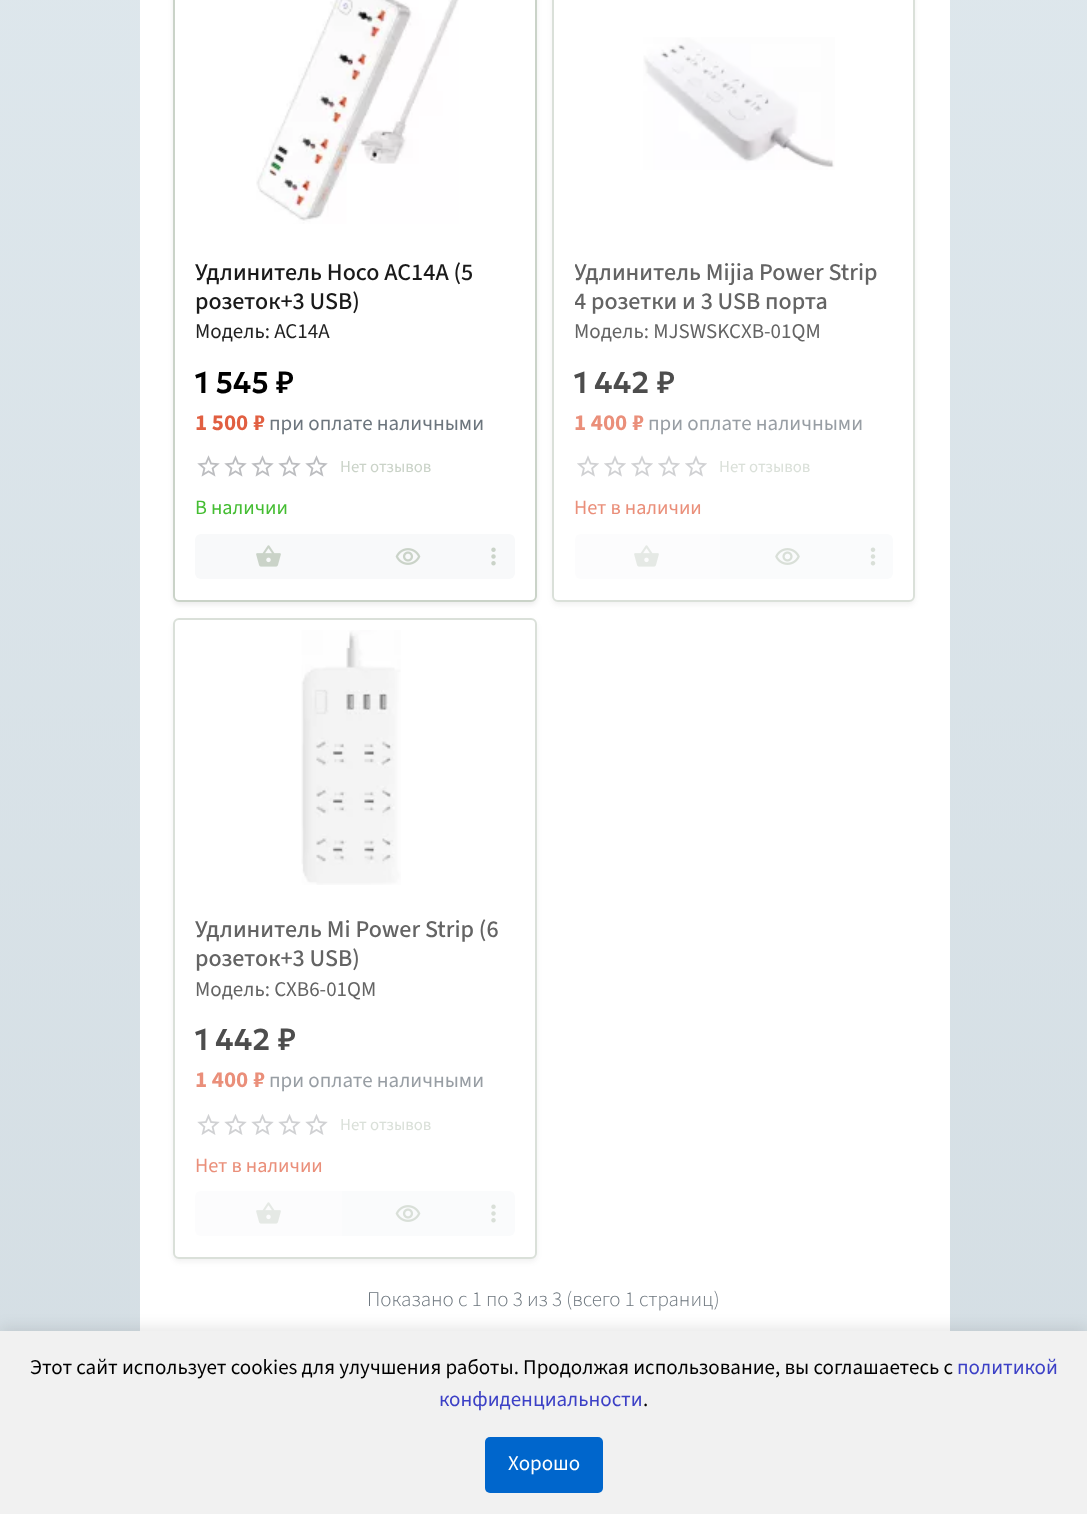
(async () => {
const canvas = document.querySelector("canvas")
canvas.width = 1087
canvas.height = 1514
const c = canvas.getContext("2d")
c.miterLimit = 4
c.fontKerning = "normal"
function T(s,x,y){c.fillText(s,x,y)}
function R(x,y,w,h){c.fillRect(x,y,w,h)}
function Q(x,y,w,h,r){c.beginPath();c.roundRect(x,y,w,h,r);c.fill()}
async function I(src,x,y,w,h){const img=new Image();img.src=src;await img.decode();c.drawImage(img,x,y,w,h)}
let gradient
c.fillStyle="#fff"
R(0,0,1087,1514)
gradient = c.createLinearGradient(544,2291,544,-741)
gradient.addColorStop(0,"#cfd9df")
gradient.addColorStop(1,"#e2ebf0")
c.fillStyle = gradient
R(0,0,1087,1331)
c.fillStyle="#fff"
R(140,0,810,1331)
c.fillStyle="#00000012"
c.filter="blur(2.5px)"
c.beginPath()
c.roundRect(173,-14,364,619,6)
c.fill()
c.filter="none"
c.fillStyle="#fff"
c.beginPath()
c.roundRect(174,-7,362,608,5)
c.fill()
c.strokeStyle="#cad3c8"
c.lineWidth=2
c.stroke()
await I("1.png",256,0,203,224)
c.font="500 24.1px 'Source Sans 3'"
c.fillStyle="#1a1a1a"
T("Удлинитель Hoco AC14A (5",195,280)
T("розеток+3 USB)",195,309)
c.font="21px 'Source Sans 3'"
c.fillStyle="#222"
T("Модель: AC14A",195,338)
c.font="100 30px Geologica"
c.fillStyle="#000"
T("1 545",195,393)
c.font="600 30px Noto Sans"
T("₽",276,393)
c.font="bold 23px 'Source Sans 3'"
c.fillStyle="#e15f41"
T("1 500 ₽",195,430)
c.font="21px 'Source Sans 3'"
c.fillStyle="#6c757d"
T("при оплате наличными",269,430)
await I("2.png",197,455,23,22)
await I("2.png",224,455,23,22)
await I("2.png",251,455,23,22)
await I("2.png",278,455,23,22)
await I("2.png",305,455,23,22)
c.font="16.75px 'Source Sans 3'"
c.fillStyle="#cad3c8"
T("Нет отзывов",340,472)
c.font="20.25px 'Source Sans 3'"
c.fillStyle="#44bd32"
T("В наличии",195,514)
c.fillStyle="#f8f9fa"
c.beginPath()
c.roundRect(195,534,147,45,[6,0,0,6])
c.fill()
await I("3.png",256,545,25,22)
R(342,534,132,45)
await I("4.png",395,548,26,17)
c.beginPath()
c.roundRect(474,534,41,45,[0,6,6,0])
c.fill()
await I("5.png",491,547,5,19)
c.fillStyle="#4d4d4d12"
c.filter="blur(2.5px)"
c.beginPath()
c.roundRect(552,-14,363,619,6)
c.fill()
c.filter="none"
c.fillStyle="#fff"
c.beginPath()
c.roundRect(553,-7,361,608,5)
c.fill()
c.strokeStyle="#dae0d9"
c.stroke()
await I("6.png",643,37,192,133)
c.save()
c.beginPath()
c.rect(575,258,318,59)
c.clip()
c.font="500 24.1px 'Source Sans 3'"
c.fillStyle="#646464"
T("Удлинитель Mijia Power Strip",574,280)
T("4 розетки и 3 USB порта",574,309)
c.restore()
c.font="21px 'Source Sans 3'"
c.fillStyle="#646464"
T("Модель: MJSWSKCXB-01QM",574,338)
c.font="100 30px Geologica"
c.fillStyle="#4d4d4d"
T("1 442",574,393)
c.font="600 30px Noto Sans"
T("₽",657,393)
c.font="bold 23px 'Source Sans 3'"
c.fillStyle="#ea8f7a"
T("1 400 ₽",574,430)
c.font="21px 'Source Sans 3'"
c.fillStyle="#989ea4"
T("при оплате наличными",648,430)
await I("7.png",577,455,22,22)
await I("7.png",604,455,22,22)
await I("7.png",631,455,22,22)
await I("7.png",658,455,22,22)
await I("7.png",685,455,22,22)
c.font="16.75px 'Source Sans 3'"
c.fillStyle="#dae0d9"
T("Нет отзывов",719,472)
c.font="20.25px 'Source Sans 3'"
c.fillStyle="#ea8f7a"
T("Нет в наличии",574,514)
c.fillStyle="#fcfcfd"
c.beginPath()
c.roundRect(575,534,145,45,[6,0,0,6])
c.fill()
await I("8.png",634,545,25,22)
c.fillStyle="#fafbfc"
R(720,534,132,45)
await I("9.png",775,548,25,17)
c.beginPath()
c.roundRect(852,534,41,45,[0,6,6,0])
c.fill()
await I("10.png",870,547,6,19)
c.fillStyle="#4d4d4d12"
c.filter="blur(2.5px)"
c.beginPath()
c.roundRect(173,621,364,641,6)
c.fill()
c.filter="none"
c.fillStyle="#fff"
c.beginPath()
c.roundRect(174,619,362,639,5)
c.fill()
c.stroke()
await I("11.png",301,630,100,255)
c.font="500 24.1px 'Source Sans 3'"
c.fillStyle="#646464"
T("Удлинитель Mi Power Strip (6",195,937)
T("розеток+3 USB)",195,966)
c.font="21px 'Source Sans 3'"
T("Модель: CXB6-01QM",195,996)
c.font="100 30px Geologica"
c.fillStyle="#4d4d4d"
T("1 442",195,1050)
c.font="600 30px Noto Sans"
T("₽",278,1050)
c.font="bold 23px 'Source Sans 3'"
c.fillStyle="#ea8f7a"
T("1 400 ₽",195,1087)
c.font="21px 'Source Sans 3'"
c.fillStyle="#989ea4"
T("при оплате наличными",269,1087)
await I("12.png",197,1114,23,21)
await I("12.png",224,1114,23,21)
await I("12.png",251,1114,23,21)
await I("12.png",278,1114,23,21)
await I("12.png",305,1114,23,21)
c.font="16.75px 'Source Sans 3'"
c.fillStyle="#dae0d9"
T("Нет отзывов",340,1130)
c.font="20.25px 'Source Sans 3'"
c.fillStyle="#ea8f7a"
T("Нет в наличии",195,1172)
c.fillStyle="#fcfcfd"
c.beginPath()
c.roundRect(195,1191,147,45,[6,0,0,6])
c.fill()
await I("8.png",256,1202,25,22)
c.fillStyle="#fafbfc"
R(342,1191,132,45)
await I("13.png",395,1205,26,17)
c.beginPath()
c.roundRect(474,1191,41,45,[0,6,6,0])
c.fill()
await I("14.png",491,1204,5,19)
c.font="300 21px 'Source Sans 3'"
c.fillStyle="#6c757d"
T("Показано с 1 по 3 из 3 (всего 1 страниц)",367,1306)
c.fillStyle="#0000001a"
c.filter="blur(7.5px)"
c.beginPath()
c.rect(0,1328,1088,184)
c.fill()
c.filter="none"
c.fillStyle="#f1f1f1"
R(0,1331,1087,183)
c.font="21px 'Source Sans 3'"
c.fillStyle="#000"
T("Этот сайт использует cookies для улучшения работы. Продолжая использование, вы соглашаетесь с",30,1374)
c.fillStyle="#3c40c6"
T("политикой",957,1374)
T("конфиденциальности",439,1406)
c.fillStyle="#000"
T(".",643,1406)
c.fillStyle="#06c"
Q(485,1437,118,56,5)
c.fillStyle="#fff"
T("Хорошо",508,1470)
})()
